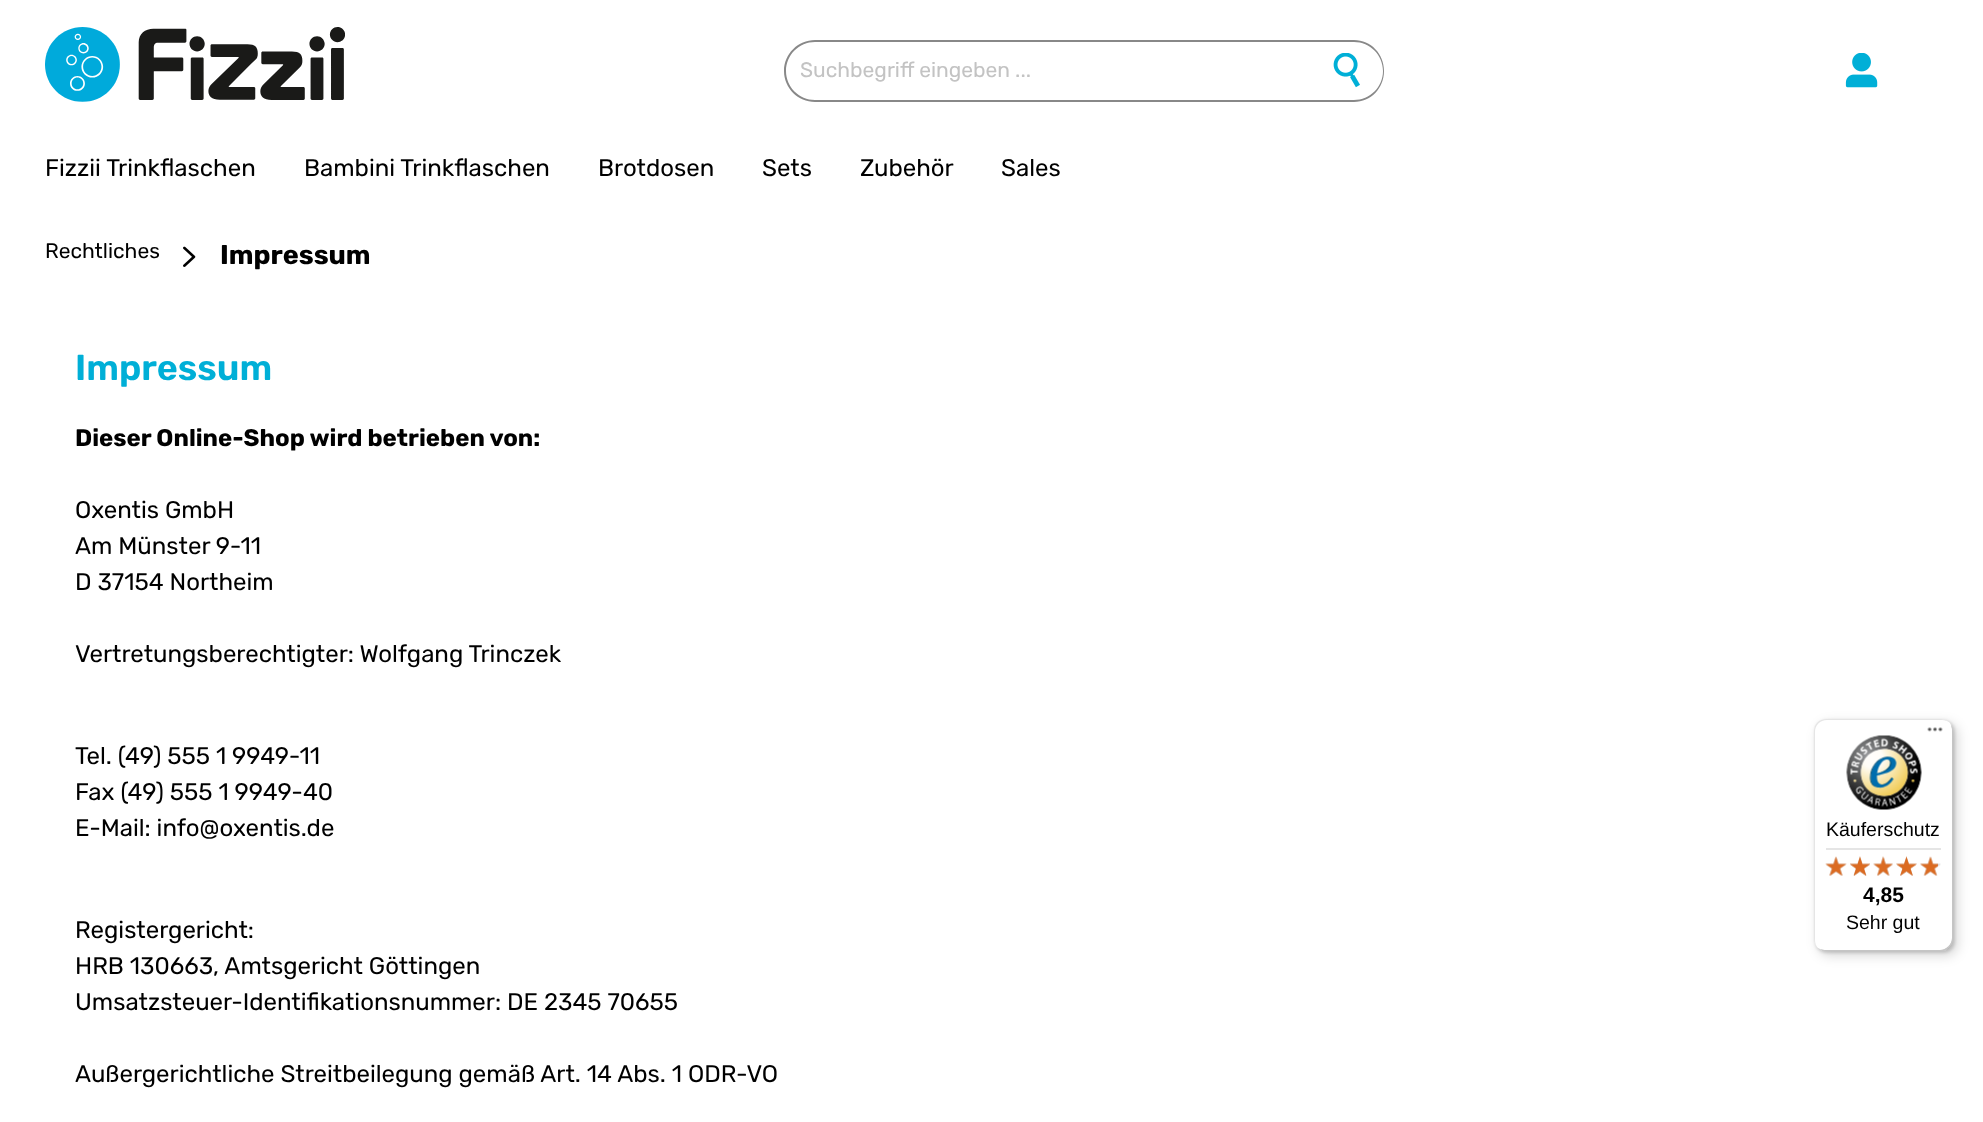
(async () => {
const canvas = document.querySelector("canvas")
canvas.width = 1983
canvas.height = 1122
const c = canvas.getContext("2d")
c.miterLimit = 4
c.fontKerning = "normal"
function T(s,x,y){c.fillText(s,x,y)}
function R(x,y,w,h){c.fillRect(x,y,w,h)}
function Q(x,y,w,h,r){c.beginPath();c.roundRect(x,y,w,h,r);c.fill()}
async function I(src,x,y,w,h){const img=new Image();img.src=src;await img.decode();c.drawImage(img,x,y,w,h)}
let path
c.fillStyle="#fff"
R(0,0,1983,1122)
await I("1.png",45,27,300,75)
c.fillStyle="#888"
path = new Path2D("M815 40h497v62h-497c-17 0-31-14-31-31c0-17 14-31 31-31zm0 2h497v58h-497c-16 0-29-13-29-29c0-16 13-29 29-29z")
c.fill(path,"evenodd")
c.font="21px Rubik"
c.fillStyle="#c3c3c3"
T("Suchbegriff eingeben ...",800,77)
c.fillStyle="#888"
path = new Path2D("M1311 40h43c17 0 30 14 30 31c0 17-13 31-30 31h-43zm0 2h43c16 0 29 13 29 29c0 16-13 29-29 29h-43z")
c.fill(path,"evenodd")
await I("2.png",1333,53,27,35)
await I("3.png",1845,53,33,35)
c.font="24px Rubik"
c.fillStyle="#000"
T("Fizzii Trinkflaschen",45,176)
T("Bambini Trinkflaschen",304,176)
T("Brotdosen",598,176)
T("Sets",762,176)
T("Zubehör",860,176)
T("Sales",1001,176)
c.font="21px Rubik"
T("Rechtliches",45,258)
await I("4.png",183,246,13,21)
c.font="bold 27px Rubik"
T("Impressum",220,264)
c.font="600 36px Rubik"
c.fillStyle="#00afd7"
T("Impressum",75,380)
c.font="bold 24px Rubik"
c.fillStyle="#000"
T("Dieser Online-Shop wird betrieben von:",75,446)
c.font="24px Rubik"
T("Oxentis GmbH",75,518)
T("Am Münster 9-11",75,554)
T("D 37154 Northeim",75,590)
T("Vertretungsberechtigter: Wolfgang Trinczek",75,662)
T("Tel. (49) 555 1 9949-11",75,764)
T("Fax (49) 555 1 9949-40",75,800)
T("E-Mail: info@oxentis.de",75,836)
T("Registergericht:",75,938)
T("HRB 130663, Amtsgericht Göttingen",75,974)
T("Umsatzsteuer-Identifikationsnummer: DE 2345 70655",75,1010)
T("Außergerichtliche Streitbeilegung gemäß Art. 14 Abs. 1 ODR-VO",75,1082)
c.fillStyle="#00000026"
c.filter="blur(6px)"
c.beginPath()
c.roundRect(1818,723,140,233,12)
c.fill()
c.filter="none"
c.filter="blur(1.5px)"
c.beginPath()
c.roundRect(1815,720,140,233,12)
c.fill()
c.filter="none"
c.fillStyle="#fff"
Q(1814,719,139,232,12)
c.fillStyle="#e5e5e5"
path = new Path2D("M1827 720h115c3 0 5 1 7 2c-2-2-5-3-8-3h-115c-7 0-12 5-12 12v208c0 3 1 6 3 8c-1-2-2-4-2-7v-208c0-7 5-12 12-12z")
c.fill(path)
c.fillStyle="#00000033"
path = new Path2D("M1820 949c1 1 4 2 6 2h115c7 0 12-5 12-12v-208c0-2-1-5-2-6l1 4v209c0 6-6 12-12 12h-116z")
c.fill(path)
c.fillStyle="#32323233"
path = new Path2D("M1818 948c2 2 5 3 8 3h115c7 0 12-5 12-12v-208c0-3-1-6-3-8c1 2 2 4 2 7v208c0 7-5 12-12 12h-115c-3 0-5-1-7-2z")
c.fill(path)
c.fillStyle="#ffffff4d"
path = new Path2D("M1818 948c2 2 5 3 8 3h115c7 0 12-5 12-12v-208c0-3-1-6-3-8c1 2 2 4 2 7v208c0 7-5 12-12 12h-115c-3 0-5-1-7-2z")
c.fill(path)
await I("5.png",1927,727,16,5)
await I("6.png",1846,735,76,75)
c.font="19.5px Liberation Sans"
c.fillStyle="#000"
T("Käuferschutz",1826,836)
c.fillStyle="#e5e5e5"
R(1826,848,115,2)
await I("12.png",1826,857,20,19)
await I("7.png",1825,856,22,20)
await I("13.png",1850,856,20,20)
await I("8.png",1850,856,20,20)
await I("14.png",1873,856,20,20)
await I("9.png",1873,856,20,20)
await I("15.png",1896,856,21,20)
await I("10.png",1896,856,21,20)
await I("16.png",1920,857,21,19)
await I("11.png",1920,856,18,20)
c.font="bold 21px Liberation Sans"
c.fillStyle="#000"
T("4,85",1863,902)
c.font="19.5px Liberation Sans"
T("Sehr gut",1846,929)
})()
